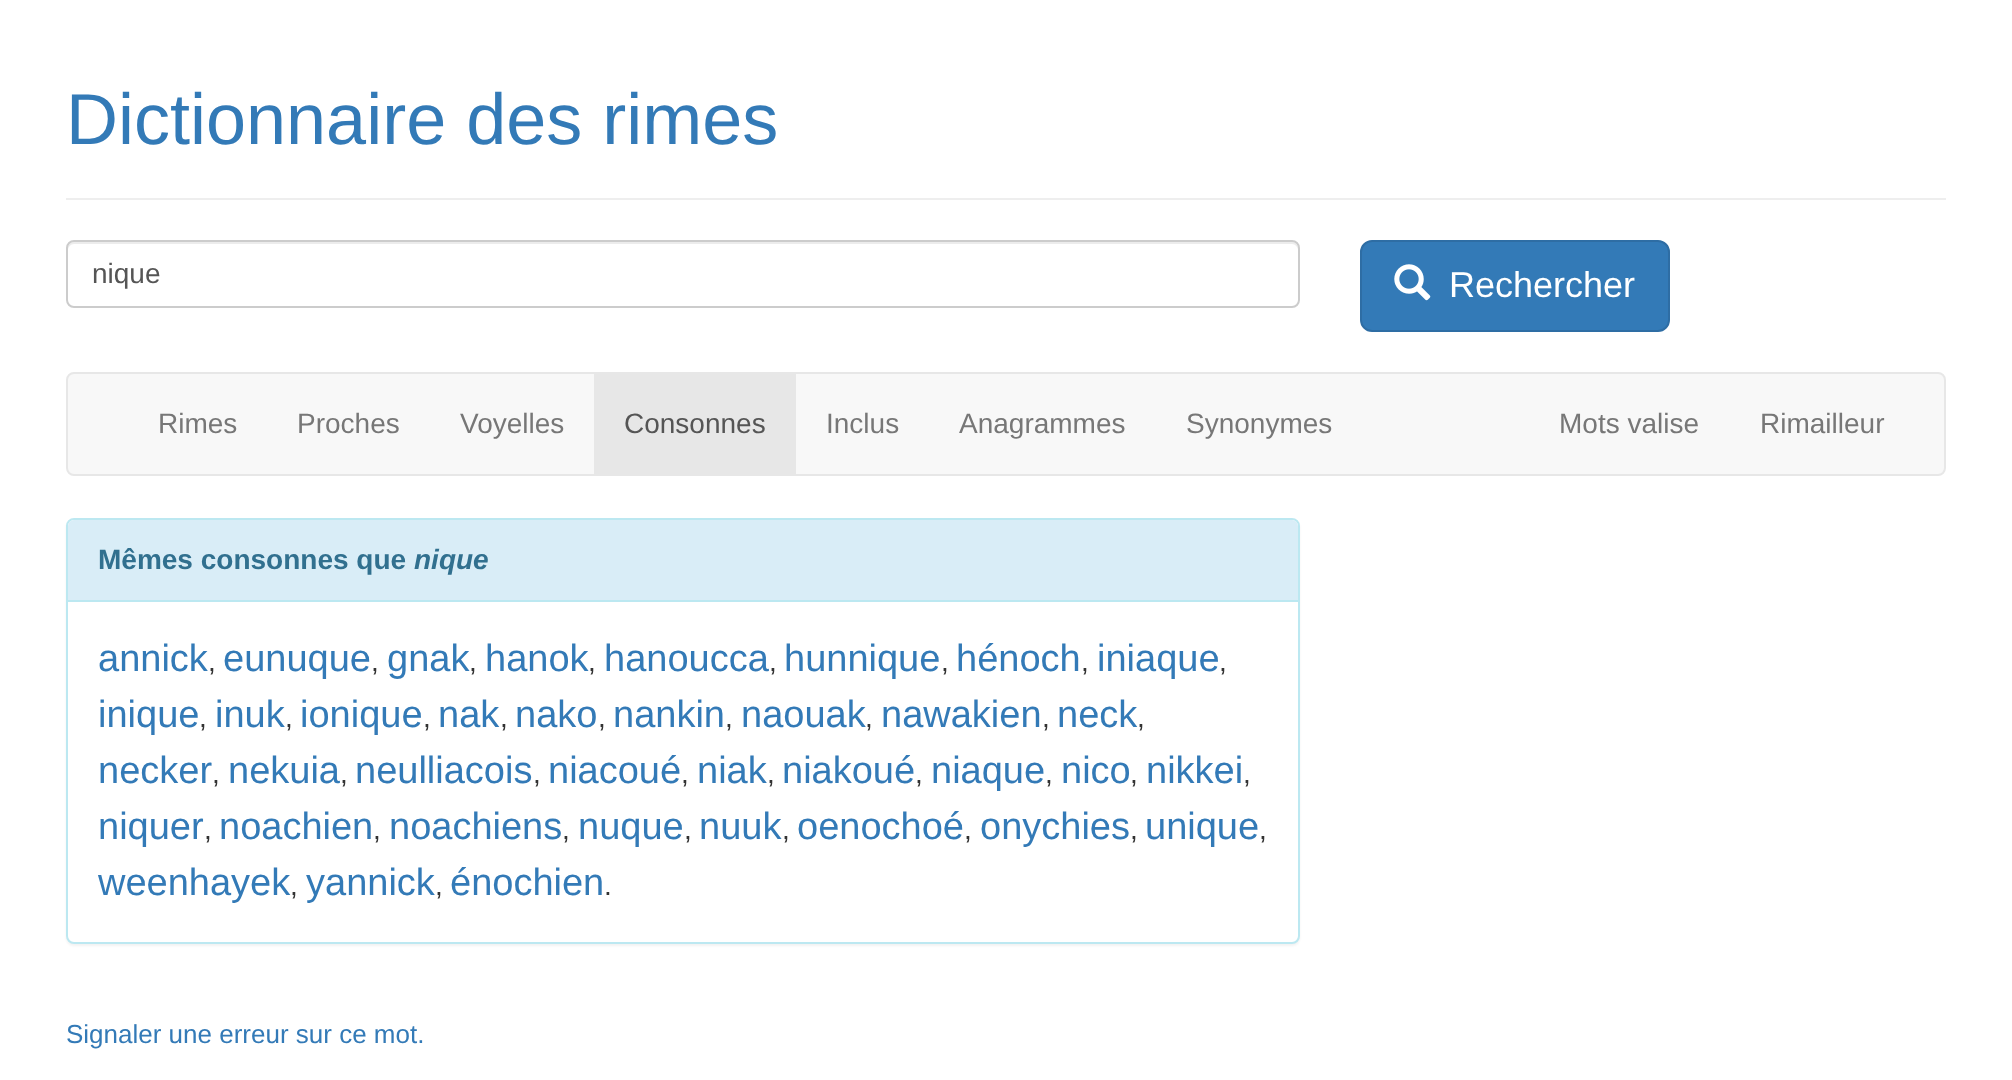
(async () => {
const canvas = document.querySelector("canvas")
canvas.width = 2012
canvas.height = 1080
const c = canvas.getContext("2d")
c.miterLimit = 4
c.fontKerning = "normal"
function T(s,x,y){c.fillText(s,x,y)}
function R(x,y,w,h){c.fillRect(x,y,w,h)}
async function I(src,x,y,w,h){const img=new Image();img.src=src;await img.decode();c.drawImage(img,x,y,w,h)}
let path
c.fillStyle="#fff"
R(0,0,2012,1080)
c.fillStyle="#eee"
R(66,198,1880,2)
c.font="72px Liberation Sans"
c.fillStyle="#337ab7"
T("Dictionnaire des rimes",66,144)
c.fillStyle="#ececec"
path = new Path2D("M74 244h1218c3 0 6 3 6 6v-2c0-3-3-6-6-6h-1218c-3 0-6 3-6 6v2c0-3 3-6 6-6z")
c.fill(path)
c.beginPath()
c.roundRect(67,241,1232,66,7)
c.strokeStyle="#ccc"
c.lineWidth=2
c.stroke()
c.font="28px Liberation Sans"
c.fillStyle="#555"
T("nique",92,283)
c.fillStyle="#337ab7"
c.beginPath()
c.roundRect(1361,241,308,90,11)
c.fill()
c.strokeStyle="#2e6da4"
c.stroke()
await I("1.png",1394,264,37,37)
c.font="36px Liberation Sans"
c.fillStyle="#fff"
T("Rechercher",1449,297)
c.fillStyle="#f8f8f8"
c.beginPath()
c.roundRect(67,373,1878,102,7)
c.fill()
c.strokeStyle="#e7e7e7"
c.stroke()
c.font="28px Liberation Sans"
c.fillStyle="#777"
T("Rimes",158,433)
T("Proches",297,433)
T("Voyelles",460,433)
c.fillStyle="#e7e7e7"
R(594,374,202,100)
c.fillStyle="#555"
T("Consonnes",624,433)
c.fillStyle="#777"
T("Inclus",826,433)
T("Anagrammes",959,433)
T("Synonymes",1186,433)
T("Mots valise",1559,433)
T("Rimailleur",1760,433)
c.fillStyle="#0000000d"
c.filter="blur(1px)"
c.beginPath()
c.roundRect(66,520,1234,426,8)
c.fill()
c.filter="none"
c.fillStyle="#fff"
c.beginPath()
c.roundRect(67,519,1232,424,7)
c.fill()
c.strokeStyle="#bce8f1"
c.stroke()
c.fillStyle="#d9edf7"
c.beginPath()
c.roundRect(68,520,1230,82,[6,6,0,0])
c.fill()
c.fillStyle="#bce8f1"
R(68,600,1230,2)
c.font="bold 28px Liberation Sans"
c.fillStyle="#31708f"
T("Mêmes consonnes que",98,569)
c.font="italic bold 28px Liberation Sans"
T("nique",414,569)
c.font="38px Liberation Sans"
c.fillStyle="#337ab7"
T("annick",98,671)
c.font="28px Liberation Sans"
c.fillStyle="#333"
T(",",208,671)
c.font="38px Liberation Sans"
c.fillStyle="#337ab7"
T("eunuque",223,671)
c.font="28px Liberation Sans"
c.fillStyle="#333"
T(",",371,671)
c.font="38px Liberation Sans"
c.fillStyle="#337ab7"
T("gnak",387,671)
c.font="28px Liberation Sans"
c.fillStyle="#333"
T(",",469,671)
c.font="38px Liberation Sans"
c.fillStyle="#337ab7"
T("hanok",485,671)
c.font="28px Liberation Sans"
c.fillStyle="#333"
T(",",588,671)
c.font="38px Liberation Sans"
c.fillStyle="#337ab7"
T("hanoucca",604,671)
c.font="28px Liberation Sans"
c.fillStyle="#333"
T(",",769,671)
c.font="38px Liberation Sans"
c.fillStyle="#337ab7"
T("hunnique",784,671)
c.font="28px Liberation Sans"
c.fillStyle="#333"
T(",",941,671)
c.font="38px Liberation Sans"
c.fillStyle="#337ab7"
T("hénoch",956,671)
c.font="28px Liberation Sans"
c.fillStyle="#333"
T(",",1081,671)
c.font="38px Liberation Sans"
c.fillStyle="#337ab7"
T("iniaque",1097,671)
c.font="28px Liberation Sans"
c.fillStyle="#333"
T(",",1219,671)
c.font="38px Liberation Sans"
c.fillStyle="#337ab7"
T("inique",98,727)
c.font="28px Liberation Sans"
c.fillStyle="#333"
T(",",199,727)
c.font="38px Liberation Sans"
c.fillStyle="#337ab7"
T("inuk",215,727)
c.font="28px Liberation Sans"
c.fillStyle="#333"
T(",",285,727)
c.font="38px Liberation Sans"
c.fillStyle="#337ab7"
T("ionique",300,727)
c.font="28px Liberation Sans"
c.fillStyle="#333"
T(",",423,727)
c.font="38px Liberation Sans"
c.fillStyle="#337ab7"
T("nak",438,727)
c.font="28px Liberation Sans"
c.fillStyle="#333"
T(",",500,727)
c.font="38px Liberation Sans"
c.fillStyle="#337ab7"
T("nako",515,727)
c.font="28px Liberation Sans"
c.fillStyle="#333"
T(",",598,727)
c.font="38px Liberation Sans"
c.fillStyle="#337ab7"
T("nankin",613,727)
c.font="28px Liberation Sans"
c.fillStyle="#333"
T(",",725,727)
c.font="38px Liberation Sans"
c.fillStyle="#337ab7"
T("naouak",741,727)
c.font="28px Liberation Sans"
c.fillStyle="#333"
T(",",865,727)
c.font="38px Liberation Sans"
c.fillStyle="#337ab7"
T("nawakien",881,727)
c.font="28px Liberation Sans"
c.fillStyle="#333"
T(",",1042,727)
c.font="38px Liberation Sans"
c.fillStyle="#337ab7"
T("neck",1057,727)
c.font="28px Liberation Sans"
c.fillStyle="#333"
T(",",1137,727)
c.font="38px Liberation Sans"
c.fillStyle="#337ab7"
T("necker",98,783)
c.font="28px Liberation Sans"
c.fillStyle="#333"
T(",",212,783)
c.font="38px Liberation Sans"
c.fillStyle="#337ab7"
T("nekuia",228,783)
c.font="28px Liberation Sans"
c.fillStyle="#333"
T(",",340,783)
c.font="38px Liberation Sans"
c.fillStyle="#337ab7"
T("neulliacois",355,783)
c.font="28px Liberation Sans"
c.fillStyle="#333"
T(",",533,783)
c.font="38px Liberation Sans"
c.fillStyle="#337ab7"
T("niacoué",548,783)
c.font="28px Liberation Sans"
c.fillStyle="#333"
T(",",681,783)
c.font="38px Liberation Sans"
c.fillStyle="#337ab7"
T("niak",697,783)
c.font="28px Liberation Sans"
c.fillStyle="#333"
T(",",767,783)
c.font="38px Liberation Sans"
c.fillStyle="#337ab7"
T("niakoué",782,783)
c.font="28px Liberation Sans"
c.fillStyle="#333"
T(",",915,783)
c.font="38px Liberation Sans"
c.fillStyle="#337ab7"
T("niaque",931,783)
c.font="28px Liberation Sans"
c.fillStyle="#333"
T(",",1045,783)
c.font="38px Liberation Sans"
c.fillStyle="#337ab7"
T("nico",1061,783)
c.font="28px Liberation Sans"
c.fillStyle="#333"
T(",",1130,783)
c.font="38px Liberation Sans"
c.fillStyle="#337ab7"
T("nikkei",1146,783)
c.font="28px Liberation Sans"
c.fillStyle="#333"
T(",",1243,783)
c.font="38px Liberation Sans"
c.fillStyle="#337ab7"
T("niquer",98,839)
c.font="28px Liberation Sans"
c.fillStyle="#333"
T(",",204,839)
c.font="38px Liberation Sans"
c.fillStyle="#337ab7"
T("noachien",219,839)
c.font="28px Liberation Sans"
c.fillStyle="#333"
T(",",373,839)
c.font="38px Liberation Sans"
c.fillStyle="#337ab7"
T("noachiens",389,839)
c.font="28px Liberation Sans"
c.fillStyle="#333"
T(",",562,839)
c.font="38px Liberation Sans"
c.fillStyle="#337ab7"
T("nuque",578,839)
c.font="28px Liberation Sans"
c.fillStyle="#333"
T(",",684,839)
c.font="38px Liberation Sans"
c.fillStyle="#337ab7"
T("nuuk",699,839)
c.font="28px Liberation Sans"
c.fillStyle="#333"
T(",",782,839)
c.font="38px Liberation Sans"
c.fillStyle="#337ab7"
T("oenochoé",797,839)
c.font="28px Liberation Sans"
c.fillStyle="#333"
T(",",964,839)
c.font="38px Liberation Sans"
c.fillStyle="#337ab7"
T("onychies",980,839)
c.font="28px Liberation Sans"
c.fillStyle="#333"
T(",",1130,839)
c.font="38px Liberation Sans"
c.fillStyle="#337ab7"
T("unique",1145,839)
c.font="28px Liberation Sans"
c.fillStyle="#333"
T(",",1259,839)
c.font="38px Liberation Sans"
c.fillStyle="#337ab7"
T("weenhayek",98,895)
c.font="28px Liberation Sans"
c.fillStyle="#333"
T(",",290,895)
c.font="38px Liberation Sans"
c.fillStyle="#337ab7"
T("yannick",306,895)
c.font="28px Liberation Sans"
c.fillStyle="#333"
T(",",435,895)
c.font="38px Liberation Sans"
c.fillStyle="#337ab7"
T("énochien",450,895)
c.font="28px Liberation Sans"
c.fillStyle="#333"
T(".",604,895)
c.font="26px Liberation Sans"
c.fillStyle="#337ab7"
T("Signaler une erreur sur ce mot.",66,1043)
})()
